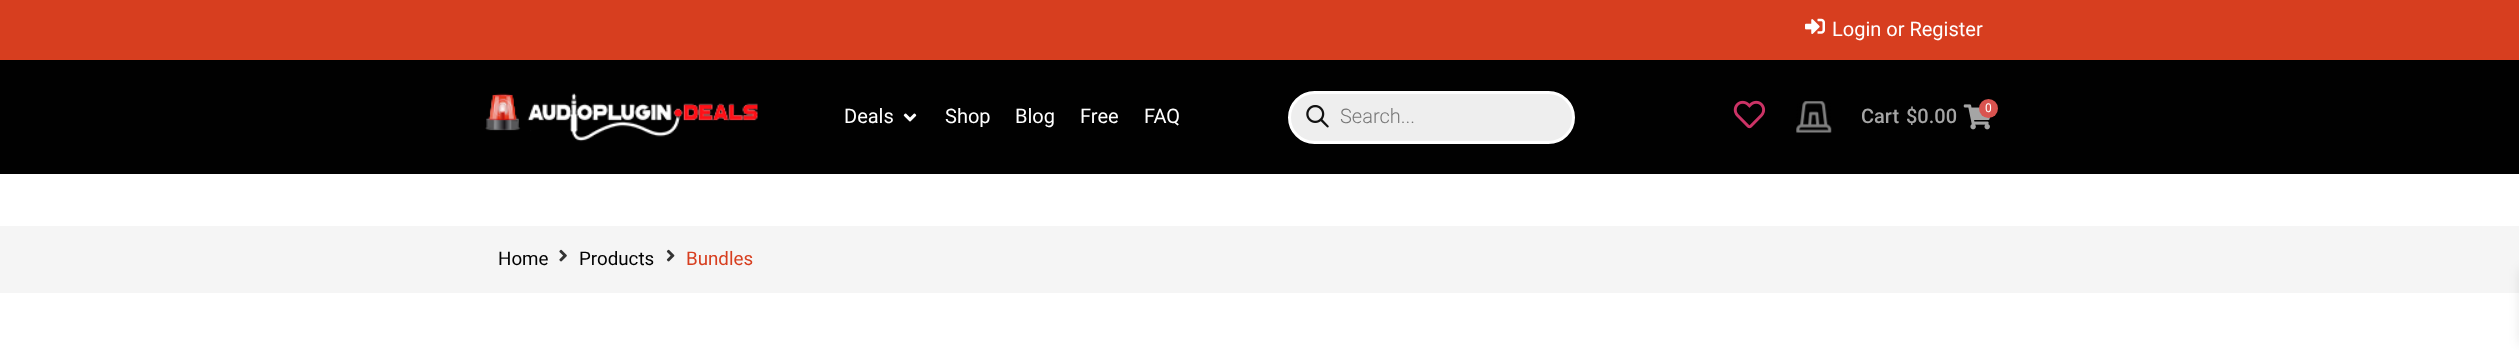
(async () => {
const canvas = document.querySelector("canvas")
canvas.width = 2519
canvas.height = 350
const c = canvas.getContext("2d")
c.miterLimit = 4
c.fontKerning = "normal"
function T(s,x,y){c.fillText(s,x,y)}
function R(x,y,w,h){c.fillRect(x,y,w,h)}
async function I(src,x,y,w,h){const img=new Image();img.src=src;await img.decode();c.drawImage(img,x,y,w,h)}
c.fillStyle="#fff"
R(0,0,2519,350)
c.fillStyle="#d73e1f"
R(0,0,2519,60)
await I("1.png",1805,18,20,16)
c.font="20px Roboto"
c.fillStyle="#fff"
T("Login or Register",1832,36)
c.fillStyle="#010101"
R(0,60,2519,114)
await I("2.png",485,93,273,49)
c.fillStyle="#fff"
T("Deals",844,123)
await I("3.png",903,113,14,9)
T("Shop",945,123)
T("Blog",1015,123)
T("Free",1080,123)
T("FAQ",1144,123)
c.fillStyle="#eee"
c.beginPath()
c.roundRect(1289.5,92.5,284,50,25)
c.fill()
c.strokeStyle="#fff"
c.lineWidth=3
c.stroke()
await I("4.png",1306,105,23,23)
c.font="300 20px Roboto"
c.fillStyle="#777"
T("Search...",1340,123)
await I("5.png",1733,100,33,29)
await I("6.png",1796,101,36,32)
c.font="500 20px Roboto"
c.fillStyle="#a5a5a5"
T("Cart",1861,123)
T("$0.00",1906,123)
await I("7.png",1963,104,27,26)
c.fillStyle="#d9534f"
c.beginPath()
c.arc(1988.5,108.5,9.5,0,7)
c.fill()
c.font="12px Roboto"
c.fillStyle="#fff"
T("0",1985,112)
c.fillStyle="#f5f5f5"
R(0,226,2519,67)
c.font="18.75px Roboto"
c.fillStyle="#010101"
T("Home",498,265)
await I("8.png",559,249,8,13)
T("Products",579,265)
await I("9.png",666,249,9,13)
c.fillStyle="#d73e1f"
T("Bundles",686,265)
c.fillStyle="#0000001a"
c.filter="blur(6px)"
c.beginPath()
c.rect(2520,269,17,75)
c.fill()
c.filter="none"
})()
